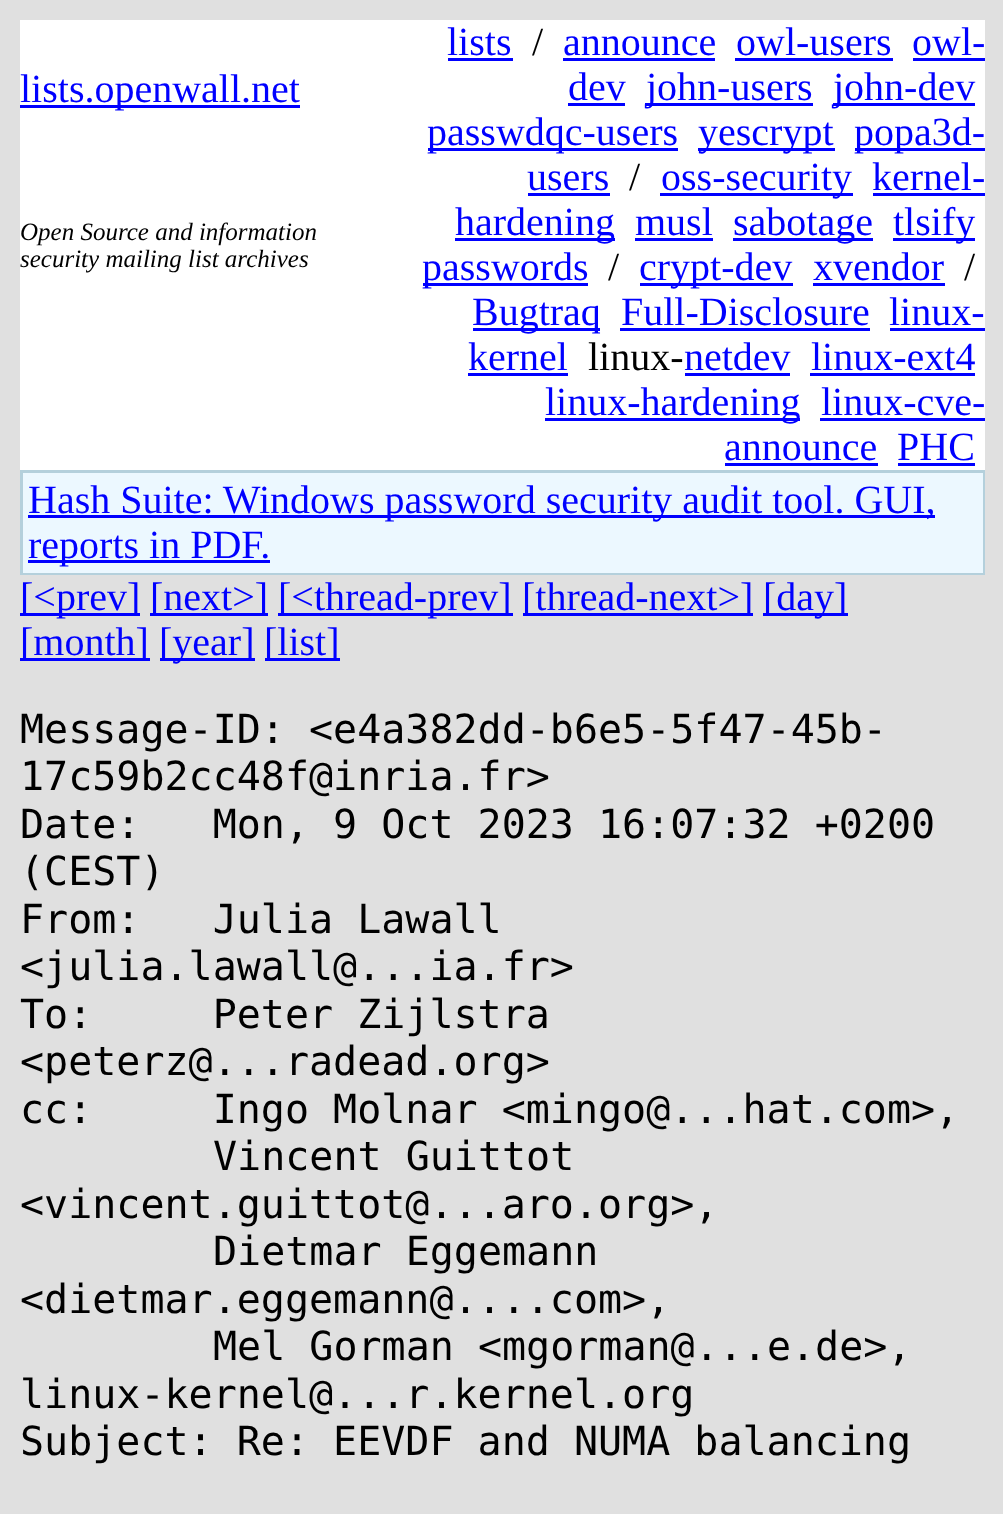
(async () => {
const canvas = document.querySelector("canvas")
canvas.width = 1003
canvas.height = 1514
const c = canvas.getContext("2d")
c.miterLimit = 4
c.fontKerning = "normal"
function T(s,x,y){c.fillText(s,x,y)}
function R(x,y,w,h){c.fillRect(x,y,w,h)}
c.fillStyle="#e0e0e0"
R(0,0,1003,1514)
c.fillStyle="#fff"
R(20,20,965,450)
c.fillStyle="#00f"
R(20,105,280,3)
c.font="40px Liberation Serif"
T("lists.openwall.net",20,102)
T("lists",447,55)
R(448,58,65,3)
c.fillStyle="#000"
T("/",532,55)
c.fillStyle="#00f"
T("announce",563,55)
R(563,58,152,3)
T("owl-users",736,55)
R(735,58,158,3)
T("owl-",912,55)
R(913,58,72,3)
T("dev",568,100)
R(568,103,57,3)
R(645,103,168,3)
T("john-users",646,100)
R(833,103,142,3)
T("john-dev",833,100)
R(428,148,250,3)
T("passwdqc-users",427,145)
R(698,148,137,3)
T("yescrypt",698,145)
R(855,148,130,3)
T("popa3d-",854,145)
T("users",527,190)
R(528,193,82,3)
c.fillStyle="#000"
T("/",629,190)
c.fillStyle="#00f"
R(660,193,193,3)
T("oss-security",661,190)
T("kernel-",872,190)
R(873,193,112,3)
R(455,238,160,3)
T("hardening",455,235)
T("musl",635,235)
R(635,238,78,3)
R(733,238,140,3)
T("sabotage",733,235)
R(893,238,82,3)
T("tlsify",893,235)
R(423,283,165,3)
T("passwords",422,280)
c.fillStyle="#000"
T("/",608,280)
c.fillStyle="#00f"
R(640,283,153,3)
T("crypt-dev",639,280)
T("xvendor",813,280)
R(813,283,132,3)
c.fillStyle="#000"
T("/",964,280)
c.fillStyle="#00f"
R(473,328,127,3)
T("Bugtraq",472,325)
T("Full-Disclosure",621,325)
R(620,328,250,3)
T("linux-",889,325)
R(890,328,95,3)
T("kernel",468,370)
R(468,373,100,3)
c.fillStyle="#000"
T("linux-",588,370)
c.fillStyle="#00f"
T("netdev",684,370)
R(685,373,105,3)
T("linux-ext4",811,370)
R(810,373,165,3)
R(545,418,255,3)
T("linux-hardening",545,415)
T("linux-cve-",821,415)
R(820,418,165,3)
T("announce",724,460)
R(725,463,153,3)
T("PHC",897,460)
R(898,463,77,3)
c.font="italic 25px Liberation Serif"
c.fillStyle="#000"
T("Open Source and information",20,240)
T("security mailing list archives",20,267)
c.fillStyle="#b4d0dc"
R(20,470,965,105)
c.fillStyle="#ecf8ff"
R(23,473,960,100)
c.fillStyle="#00f"
R(28,515,907,3)
c.font="40px Liberation Serif"
T("Hash Suite: Windows password security audit tool. GUI,",28,513)
R(28,560,242,3)
T("reports in PDF.",28,558)
R(20,613,120,3)
T("[<prev]",20,610)
R(150,613,118,3)
T("[next>]",150,610)
R(278,613,235,3)
T("[<thread-prev]",278,610)
R(523,613,230,3)
T("[thread-next>]",522,610)
R(763,613,85,3)
T("[day]",763,610)
R(20,658,130,3)
T("[month]",20,655)
R(160,658,95,3)
T("[year]",159,655)
R(265,658,75,3)
T("[list]",264,655)
c.font="40px DejaVu Sans Mono"
c.fillStyle="#000"
T("Message-ID: <e4a382dd-b6e5-5f47-45b-",20,743)
T("17c59b2cc48f@inria.fr>",20,790)
T("Date:   Mon, 9 Oct 2023 16:07:32 +0200",20,838)
T("(CEST)",20,885)
T("From:   Julia Lawall",20,933)
T("<julia.lawall@...ia.fr>",20,980)
T("To:     Peter Zijlstra",20,1028)
T("<peterz@...radead.org>",20,1075)
T("cc:     Ingo Molnar <mingo@...hat.com>,",20,1123)
T("Vincent Guittot",213,1170)
T("<vincent.guittot@...aro.org>,",20,1218)
T("Dietmar Eggemann",213,1265)
T("<dietmar.eggemann@....com>,",20,1313)
T("Mel Gorman <mgorman@...e.de>,",213,1360)
T("linux-kernel@...r.kernel.org",20,1408)
T("Subject: Re: EEVDF and NUMA balancing",20,1455)
})()
